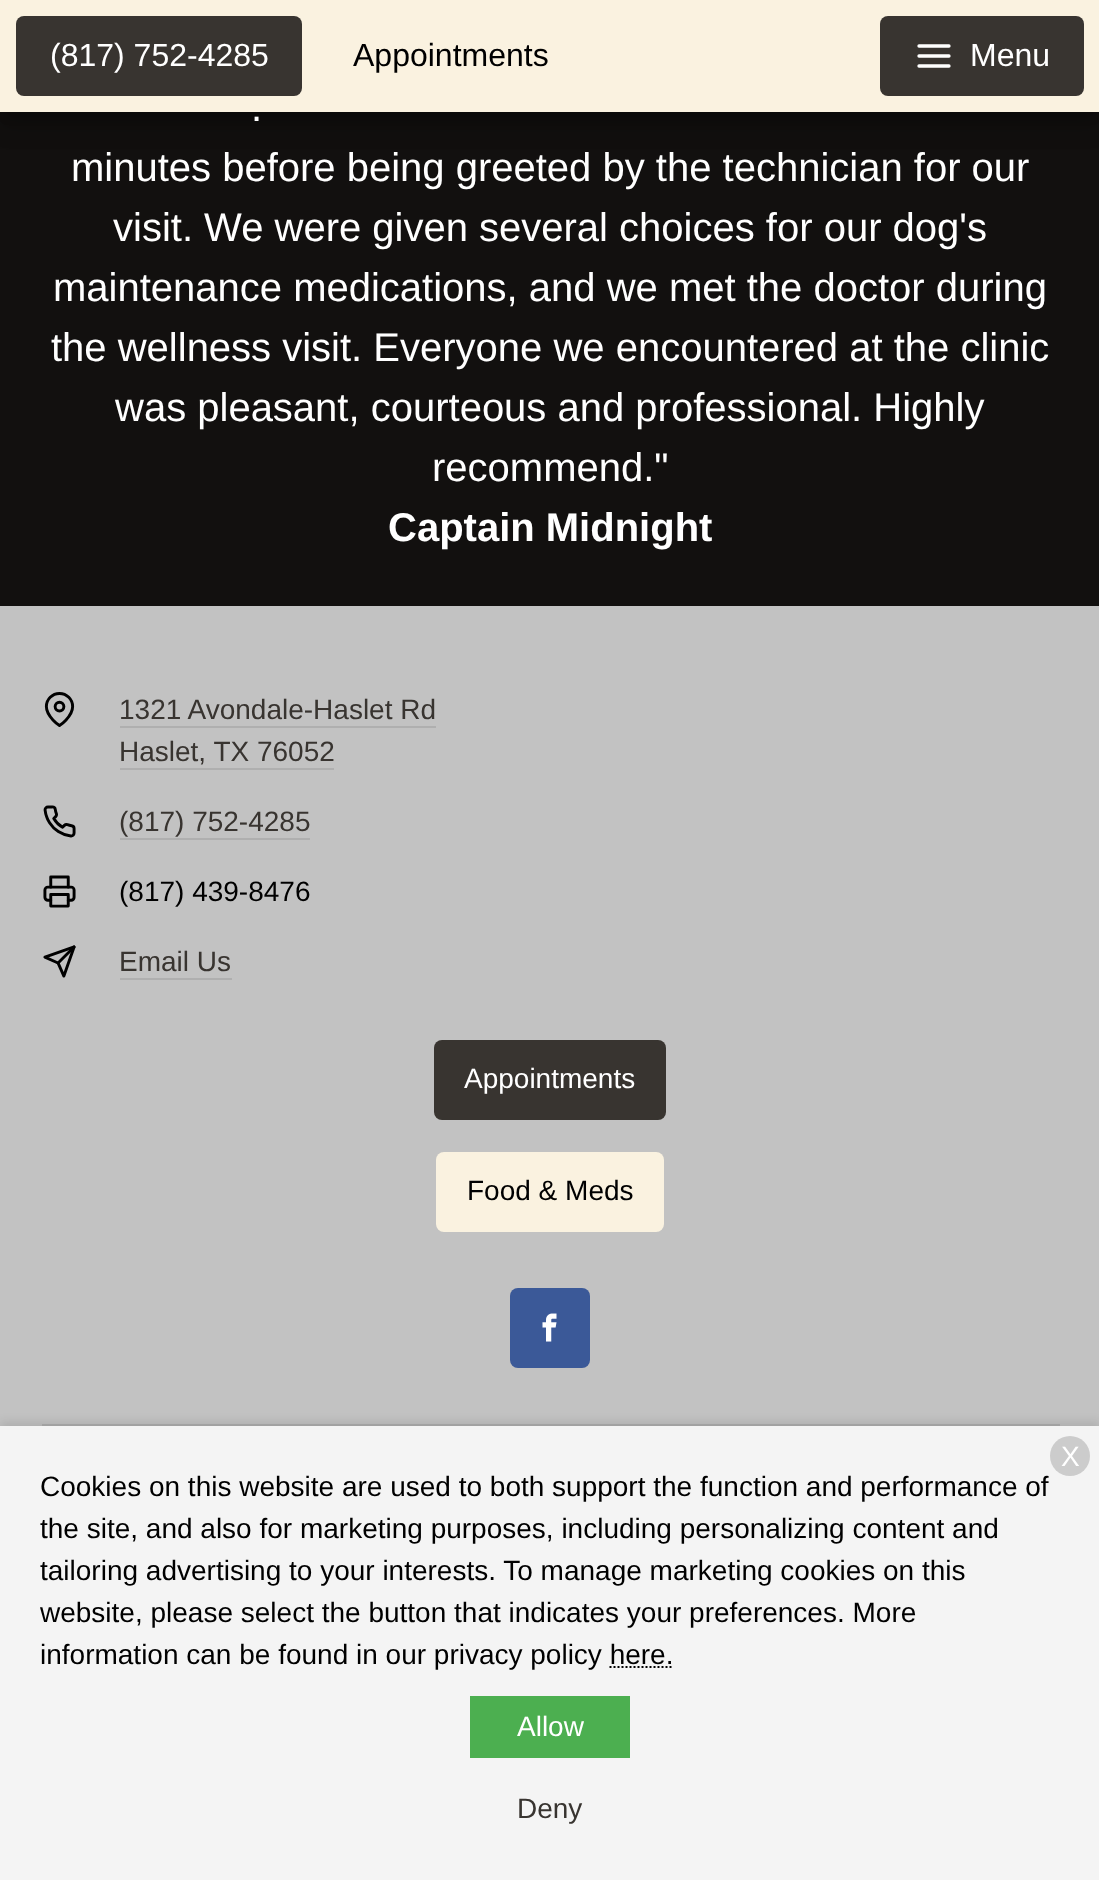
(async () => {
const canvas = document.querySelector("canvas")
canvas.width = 1099
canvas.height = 1880
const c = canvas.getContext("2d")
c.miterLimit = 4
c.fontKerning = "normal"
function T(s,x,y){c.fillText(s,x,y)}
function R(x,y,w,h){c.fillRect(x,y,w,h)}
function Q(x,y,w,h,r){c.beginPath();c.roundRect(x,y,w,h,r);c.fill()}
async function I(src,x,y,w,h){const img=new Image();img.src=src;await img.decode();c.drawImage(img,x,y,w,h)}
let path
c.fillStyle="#12100f"
R(0,0,1099,1880)
c.fillStyle="#0000001f"
c.filter="blur(14px)"
c.beginPath()
c.rect(-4,2,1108,120)
c.fill()
c.filter="none"
c.fillStyle="#00000024"
c.filter="blur(10px)"
c.beginPath()
c.rect(-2,14,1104,116)
c.fill()
c.filter="none"
c.fillStyle="#00000033"
c.filter="blur(5px)"
c.beginPath()
c.rect(6,16,1088,100)
c.fill()
c.filter="none"
c.fillStyle="#faf2e0"
R(0,0,1099,112)
c.fillStyle="#383430"
Q(16,16,286,80,8)
c.font="32px Liberation Sans"
c.fillStyle="#fff"
T("(817) 752-4285",50,66)
c.fillStyle="#000"
T("Appointments",353,66)
c.fillStyle="#383430"
Q(880,16,204,80,8)
await I("1.png",917,44,34,24)
c.fillStyle="#fff"
T("Menu",970,66)
c.font="40px Liberation Sans"
T(".",251,121)
T("minutes before being greeted by the technician for our",71,181)
T("visit. We were given several choices for our dog's",113,241)
T("maintenance medications, and we met the doctor during",53,301)
T("the wellness visit. Everyone we encountered at the clinic",51,361)
T("was pleasant, courteous and professional. Highly",115,421)
T("recommend.\"",432,481)
c.font="bold 40px Liberation Sans"
T("Captain Midnight",388,541)
c.fillStyle="#c2c2c2"
R(0,606,1099,820)
await I("2.png",44,692,31,35)
c.font="28px Liberation Sans"
c.fillStyle="#383430"
T("1321 Avondale-Haslet Rd",119,719)
c.fillStyle="#afafaf"
R(120,726,316,2)
c.fillStyle="#383430"
T("Haslet, TX 76052",119,761)
c.fillStyle="#afafaf"
R(120,768,214,2)
await I("3.png",43,805,33,33)
c.fillStyle="#383430"
T("(817) 752-4285",119,831)
c.fillStyle="#afafaf"
R(120,838,190,2)
await I("4.png",43,875,33,33)
c.fillStyle="#000"
T("(817) 439-8476",119,901)
await I("5.png",43,945,33,33)
c.fillStyle="#383430"
T("Email Us",119,971)
c.fillStyle="#afafaf"
R(120,978,112,2)
c.fillStyle="#383430"
Q(434,1040,232,80,8)
c.fillStyle="#fff"
T("Appointments",464,1088)
c.fillStyle="#faf2e0"
Q(436,1152,228,80,8)
c.fillStyle="#000"
T("Food & Meds",467,1200)
c.fillStyle="#3b5998"
Q(510,1288,80,80,8)
await I("6.png",542,1313,15,29)
c.fillStyle="#afafaf"
R(42,1424,1018,2)
c.fillStyle="#0000001a"
c.filter="blur(5px)"
c.beginPath()
c.rect(0,1422,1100,454)
c.fill()
c.filter="none"
c.fillStyle="#f4f4f4"
R(0,1426,1099,454)
c.fillStyle="#ccc"
c.beginPath()
c.arc(1070,1456,20,0,7)
c.fill()
c.fillStyle="#fff"
T("X",1061,1466)
c.fillStyle="#000"
T("Cookies on this website are used to both support the function and performance of",40,1496)
T("the site, and also for marketing purposes, including personalizing content and",40,1538)
T("tailoring advertising to your interests. To manage marketing cookies on this",40,1580)
T("website, please select the button that indicates your preferences. More",40,1622)
T("information can be found in our privacy policy here.",40,1664)
path = new Path2D("M609.5 1667h64")
c.strokeStyle="#000"
c.lineWidth=2
c.setLineDash([2,2])
c.stroke(path)
c.fillStyle="#4caf50"
R(470,1696,160,62)
c.fillStyle="#fff"
T("Allow",517,1736)
c.fillStyle="#383430"
T("Deny",517,1818)
})()
